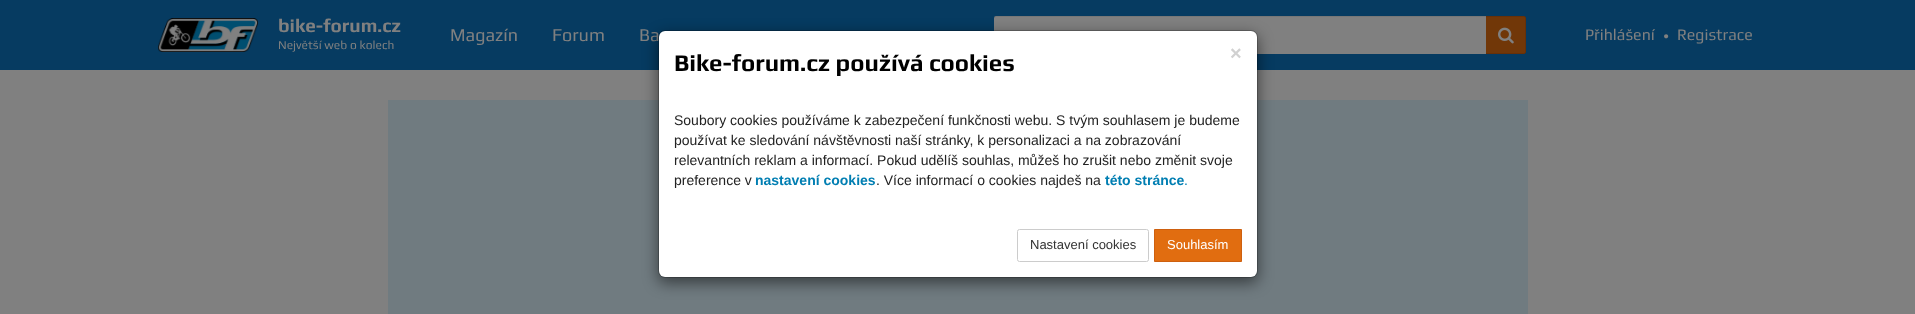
(async () => {
const canvas = document.querySelector("canvas")
canvas.width = 1915
canvas.height = 314
const c = canvas.getContext("2d")
c.miterLimit = 4
c.fontKerning = "normal"
function T(s,x,y){c.fillText(s,x,y)}
function R(x,y,w,h){c.fillRect(x,y,w,h)}
function Q(x,y,w,h,r){c.beginPath();c.roundRect(x,y,w,h,r);c.fill()}
async function I(src,x,y,w,h){const img=new Image();img.src=src;await img.decode();c.drawImage(img,x,y,w,h)}
let path
c.fillStyle="#808080"
R(0,0,1915,314)
c.fillStyle="#063b61"
R(0,0,1915,70)
await I("1.png",158,18,100,34)
c.font="bold 19px Play"
c.fillStyle="#808080"
T("bike-forum.cz",278,32)
c.font="12px Play"
T("Největší web o kolech",278,49)
c.font="18px Play"
T("Magazín",450,41)
T("Forum",552,41)
T("Ba",639,41)
c.fillStyle="#713708"
c.beginPath()
c.roundRect(1485.5,16.5,40,37,[0,1.5,1.5,0])
c.fill()
c.strokeStyle="#673008"
c.stroke()
c.fillStyle="#808080"
c.beginPath()
c.roundRect(994,16,492,38,[2,0,0,2])
c.fill()
c.fillStyle="#00000012"
path = new Path2D("M996 17h490v-1h-490l-2 1v2c0-1 1-2 2-2z")
c.fill(path)
await I("2.png",1498,27,16,17)
c.font="16px Play"
c.fillStyle="#808080"
T("Přihlášení",1585,40)
c.font="13px Play"
T("•",1663,40)
c.font="16px Play"
T("Registrace",1677,40)
c.fillStyle="#707b80"
R(388,100,1140,214)
c.fillStyle="#00000080"
c.filter="blur(7.5px)"
c.beginPath()
c.roundRect(658,35,600,248,7)
c.fill()
c.filter="none"
c.fillStyle="#fff"
Q(659,31,598,246,6)
c.beginPath()
c.roundRect(658.5,30.5,599,247,6.5)
c.strokeStyle="#00000033"
c.stroke()
c.font="bold 24px Play"
c.fillStyle="#000"
T("Bike-forum.cz používá cookies",674,71)
c.font="bold 20px Liberation Sans"
c.fillStyle="#d1d1d1"
T("×",1230,60)
c.font="14px Liberation Sans"
c.fillStyle="#222"
T("Soubory cookies používáme k zabezpečení funkčnosti webu. S tvým souhlasem je budeme",674,125)
T("používat ke sledování návštěvnosti naší stránky, k personalizaci a na zobrazování",674,145)
T("relevantních reklam a informací. Pokud udělíš souhlas, můžeš ho zrušit nebo změnit svoje",674,165)
T("preference v",674,185)
c.font="bold 14px Liberation Sans"
c.fillStyle="#007eb2"
T("nastavení cookies",755,185)
c.font="14px Liberation Sans"
c.fillStyle="#222"
T(". Více informací o cookies najdeš na",876,185)
c.font="bold 14px Liberation Sans"
c.fillStyle="#007eb2"
T("této stránce",1105,185)
c.font="14px Liberation Sans"
T(".",1184,185)
c.beginPath()
c.roundRect(1017.5,229.5,131,32,2)
c.strokeStyle="#ccc"
c.stroke()
c.font="13px Liberation Sans"
c.fillStyle="#333"
T("Nastavení cookies",1030,249)
c.fillStyle="#e16d10"
c.beginPath()
c.rect(1154.5,229.5,87,32)
c.fill()
c.strokeStyle="#ce600f"
c.stroke()
c.fillStyle="#fff"
T("Souhlasím",1167,249)
})()
